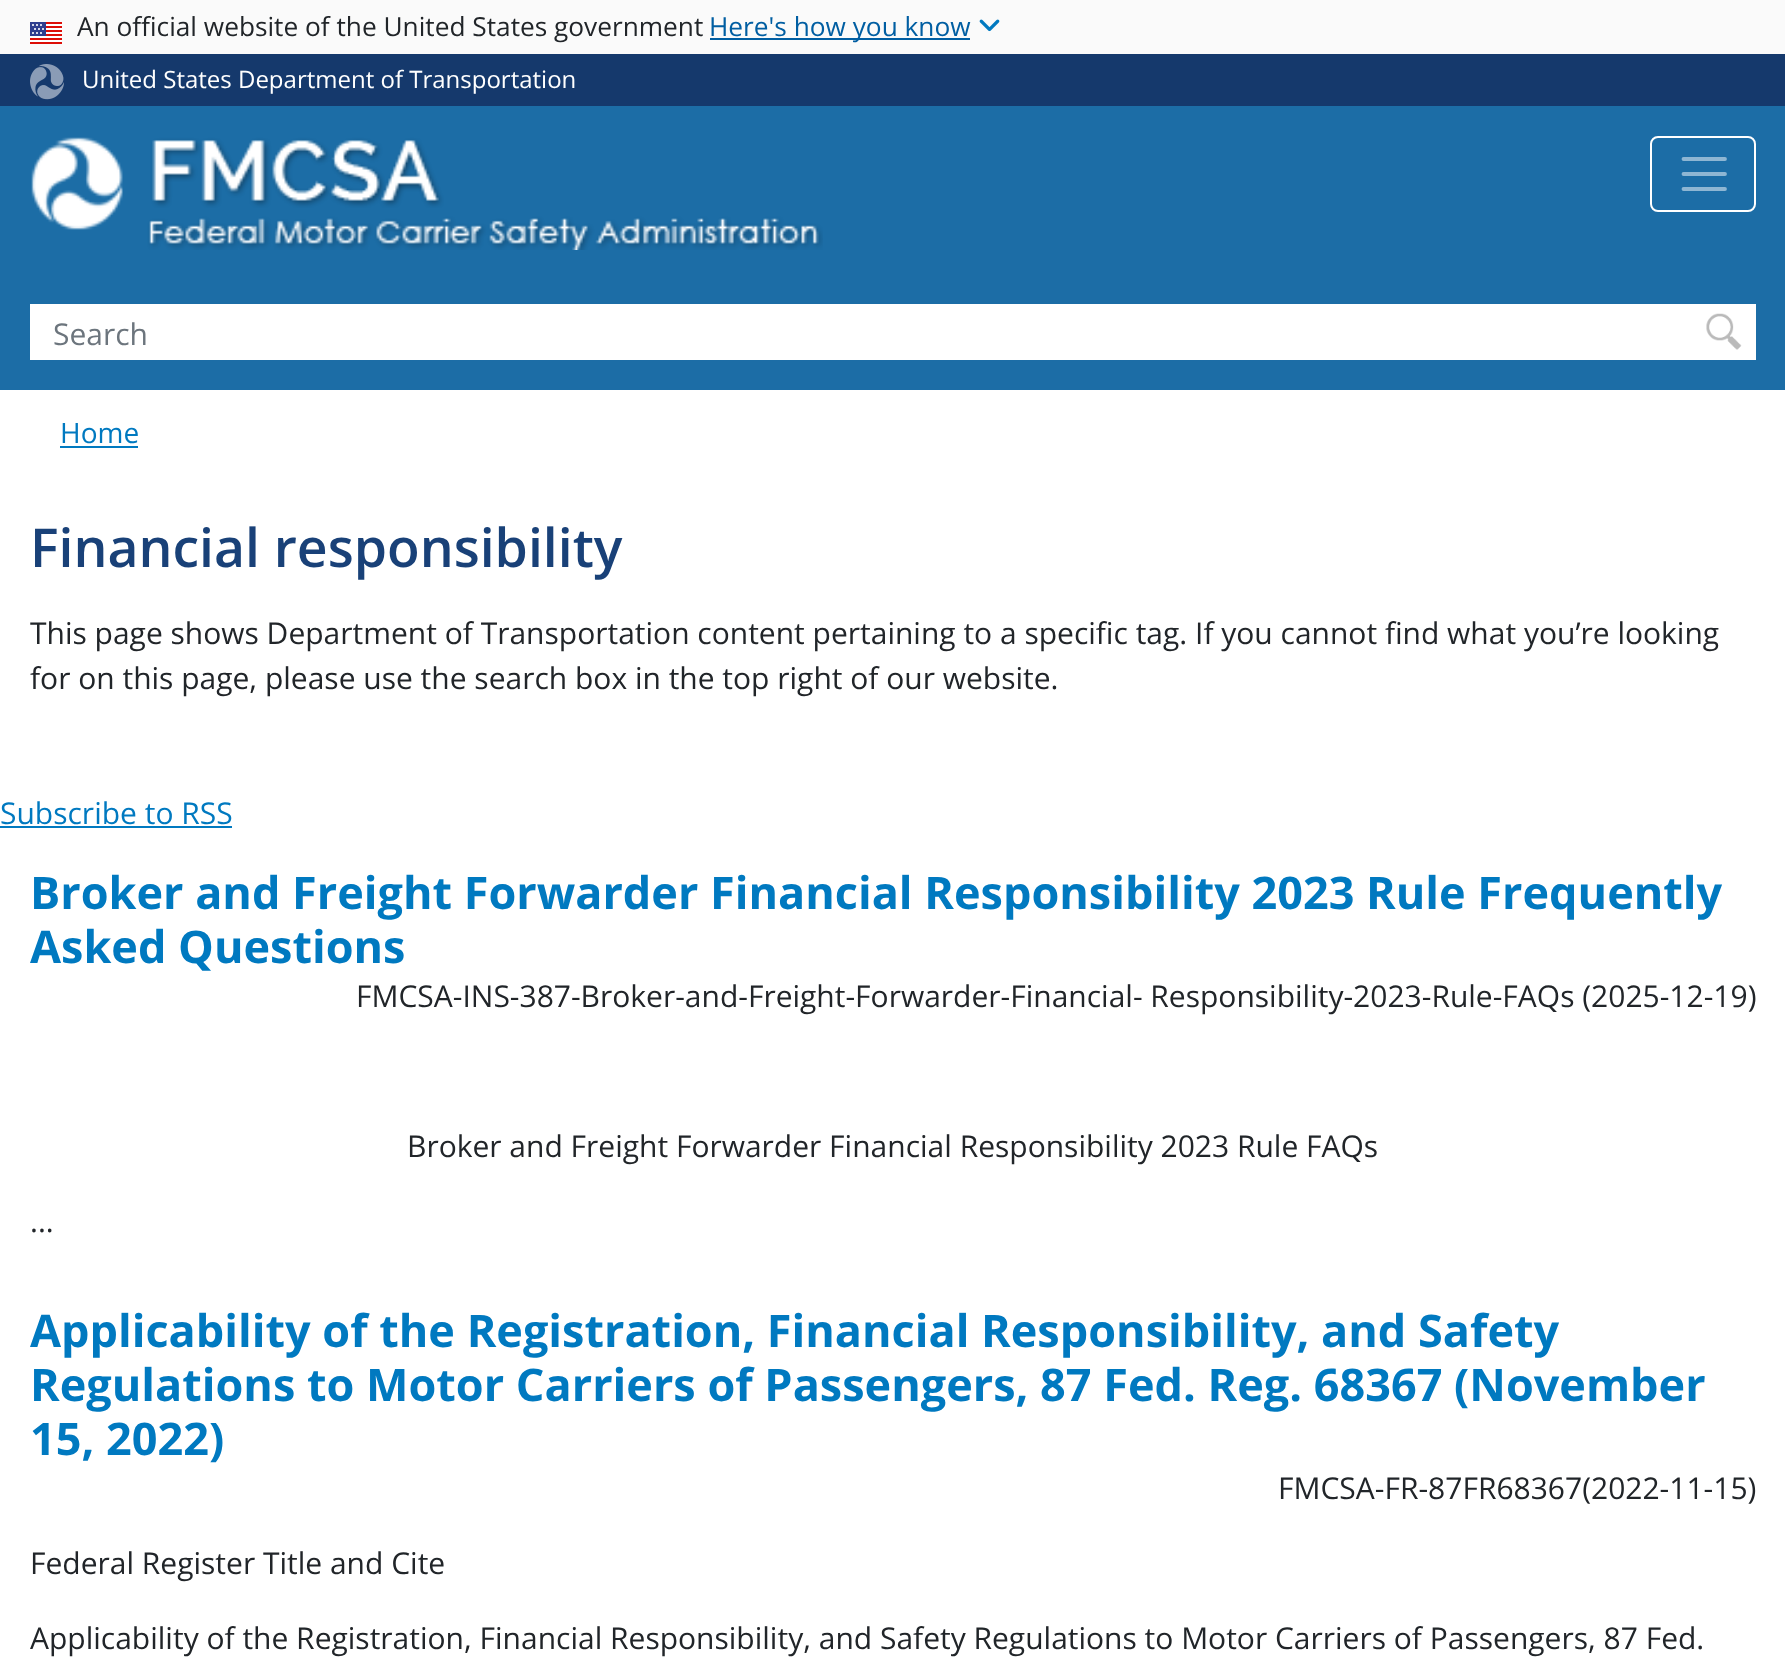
(async () => {
const canvas = document.querySelector("canvas")
canvas.width = 1785
canvas.height = 1674
const c = canvas.getContext("2d")
c.miterLimit = 4
c.fontKerning = "normal"
function T(s,x,y){c.fillText(s,x,y)}
function R(x,y,w,h){c.fillRect(x,y,w,h)}
async function I(src,x,y,w,h){const img=new Image();img.src=src;await img.decode();c.drawImage(img,x,y,w,h)}
let path
c.fillStyle="#fff"
R(0,0,1785,1674)
c.fillStyle="#fafafa"
R(0,0,1785,54)
await I("1.png",30,22,32,22)
c.font="26.25px Open Sans"
c.fillStyle="#212529"
T("An official website of the United States government",77,36)
c.fillStyle="#005ea2"
R(710,38,260,2)
T("Here's how you know",709,36)
await I("2.png",979,19,21,13)
c.fillStyle="#15396c"
R(0,54,1785,52)
await I("3.png",30,64,34,36)
c.font="24px Open Sans"
c.fillStyle="#fff"
T("United States Department of Transportation",82,88)
c.fillStyle="#1c6da6"
R(0,106,1785,284)
await I("4.png",31,137,792,113)
c.beginPath()
c.roundRect(1651,137,104,74,7)
c.strokeStyle="#fff"
c.lineWidth=2
c.stroke()
path = new Path2D("M1683.5 159h41.5m-41.5 15h41.5m-41.5 15h41.5")
c.strokeStyle="#8eb6d3"
c.lineWidth=3.8
c.lineCap="round"
c.stroke(path)
c.fillStyle="#fff"
R(30,304,1726,56)
c.font="30px Open Sans"
c.fillStyle="#6c757d"
T("Search",53,345)
await I("5.png",1706,313,36,37)
c.font="28px Open Sans"
c.fillStyle="#0079c0"
T("Home",60,443)
R(60,446,78,2)
c.font="600 53.5px Open Sans"
c.fillStyle="#194178"
T("Financial responsibility",30,567)
c.font="30px Open Sans"
c.fillStyle="#212529"
T("This page shows Department of Transportation content pertaining to a specific tag. If you cannot find what you’re looking",30,644)
T("for on this page, please use the search box in the top right of our website.",30,689)
c.fillStyle="#0079c0"
T("Subscribe to RSS",0,824)
R(0,826,232,2)
c.font="bold 45px Open Sans"
T("Broker and Freight Forwarder Financial Responsibility 2023 Rule Frequently",30,909)
T("Asked Questions",30,963)
c.font="30px Open Sans"
c.fillStyle="#212529"
T("FMCSA-INS-387-Broker-and-Freight-Forwarder-Financial- Responsibility-2023-Rule-FAQs (2025-12-19)",356,1007)
T("Broker and Freight Forwarder Financial Responsibility 2023 Rule FAQs",407,1157)
T("...",30,1232)
c.font="bold 45px Open Sans"
c.fillStyle="#0079c0"
T("Applicability of the Registration, Financial Responsibility, and Safety",30,1347)
T("Regulations to Motor Carriers of Passengers, 87 Fed. Reg. 68367 (November",30,1401)
T("15, 2022)",30,1455)
c.font="30px Open Sans"
c.fillStyle="#212529"
T("FMCSA-FR-87FR68367(2022-11-15)",1278,1499)
T("Federal Register Title and Cite",30,1574)
T("Applicability of the Registration, Financial Responsibility, and Safety Regulations to Motor Carriers of Passengers, 87 Fed.",30,1649)
})()
